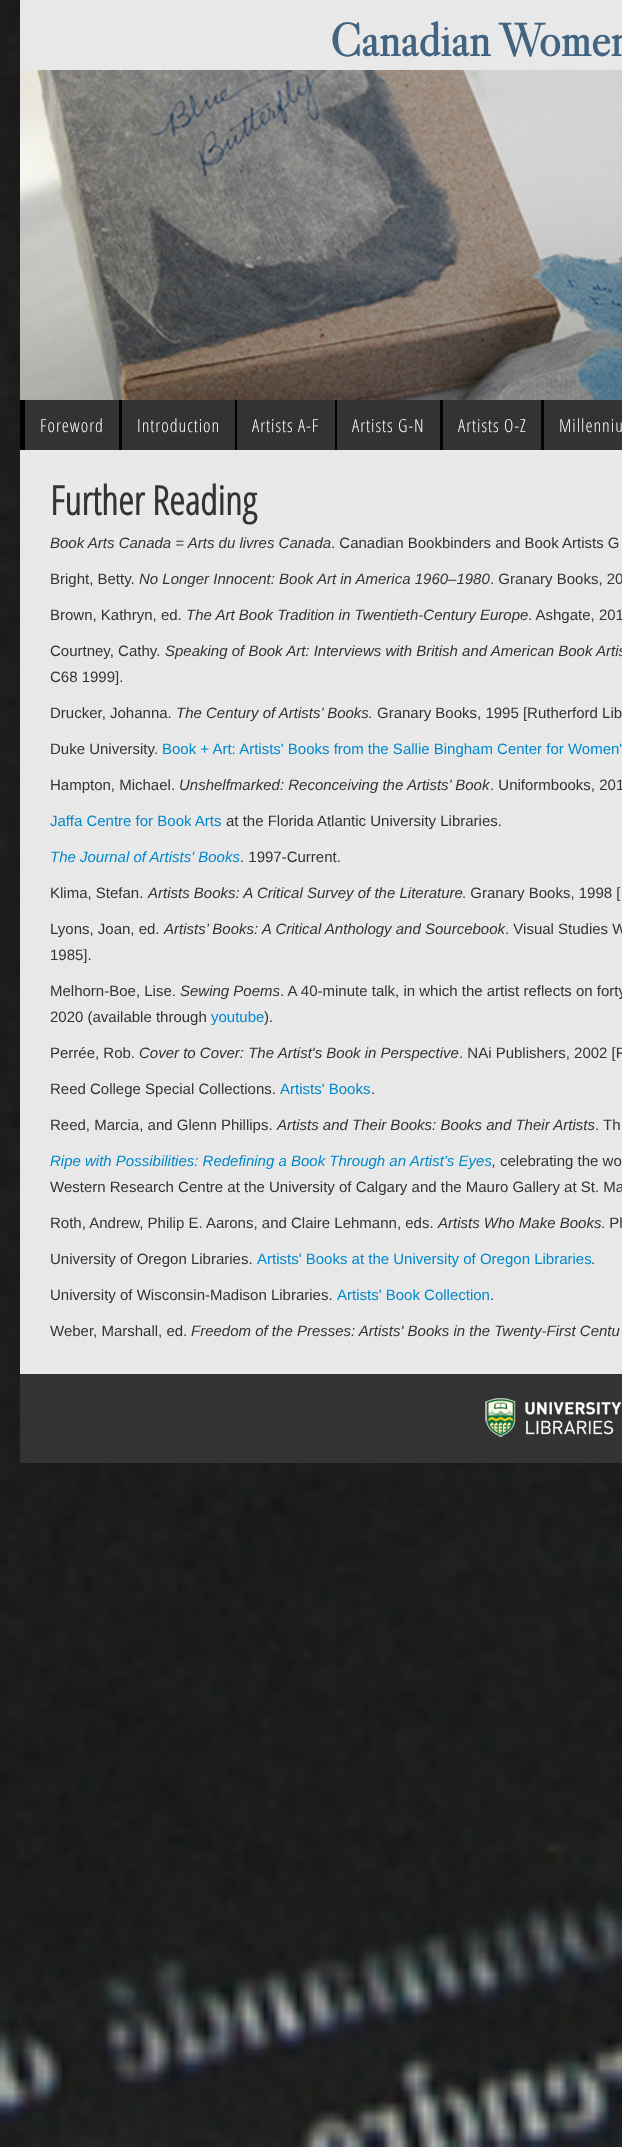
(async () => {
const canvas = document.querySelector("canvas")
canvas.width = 622
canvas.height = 2147
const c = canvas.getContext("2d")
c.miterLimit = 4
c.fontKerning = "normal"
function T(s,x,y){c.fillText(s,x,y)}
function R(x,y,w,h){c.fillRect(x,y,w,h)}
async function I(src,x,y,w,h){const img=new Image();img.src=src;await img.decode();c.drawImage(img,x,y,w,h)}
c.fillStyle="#fff"
R(0,0,622,2147)
await I("1.png",0,0,622,2147)
c.fillStyle="#ffffffe6"
R(20,0,602,1374)
await I("2.png",20,70,602,330)
c.font="bold 46.25px Libre Caslon Display"
c.fillStyle="#436480"
T("Canadian Women",330,56)
c.fillStyle="#000"
R(20,400,524,50)
c.fillStyle="#333"
R(25,400,94,50)
c.letterSpacing="1px"
c.font="300 18px Open Sans Condensed"
c.fillStyle="#fff"
T("Foreword",40,432)
c.fillStyle="#333"
R(122,400,113,50)
c.fillStyle="#fff"
T("Introduction",137,432)
c.fillStyle="#333"
R(237,400,98,50)
c.fillStyle="#fff"
T("Artists A-F",252,432)
c.fillStyle="#333"
R(337,400,103,50)
c.fillStyle="#fff"
T("Artists G-N",352,432)
c.fillStyle="#333"
R(443,400,98,50)
c.fillStyle="#fff"
T("Artists O-Z",458,432)
c.fillStyle="#333"
R(544,400,78,50)
c.fillStyle="#fff"
T("Millenniu",559,432)
c.letterSpacing="0px"
c.font="bold 40px Open Sans Condensed"
c.fillStyle="#333"
T("Further Reading",50,515)
c.font="italic 15px Liberation Sans"
T("Book Arts Canada = Arts du livres Canada",50,548)
c.font="15px Liberation Sans"
T(". Canadian Bookbinders and Book Artists G",331,548)
T("Bright, Betty.",50,584)
c.font="italic 15px Liberation Sans"
T("No Longer Innocent: Book Art in America 1960–1980",139,584)
c.font="15px Liberation Sans"
T(". Granary Books, 20",490,584)
T("Brown, Kathryn, ed.",50,620)
c.font="italic 15px Liberation Sans"
T("The Art Book Tradition in Twentieth-Century Europe",186,620)
c.font="15px Liberation Sans"
T(". Ashgate, 201",528,620)
T("Courtney, Cathy.",50,656)
c.font="italic 15px Liberation Sans"
T("Speaking of Book Art: Interviews with British and American Book Artis",165,656)
c.font="15px Liberation Sans"
T("C68 1999].",50,682)
T("Drucker, Johanna.",50,718)
c.font="italic 15px Liberation Sans"
T("The Century of Artists’ Books.",176,718)
c.font="15px Liberation Sans"
T("Granary Books, 1995 [Rutherford Lib",377,718)
T("Duke University.",50,754)
c.fillStyle="#08c"
T("Book + Art: Artists' Books from the Sallie Bingham Center for Women'",162,754)
c.fillStyle="#333"
T("Hampton, Michael.",50,790)
c.font="italic 15px Liberation Sans"
T("Unshelfmarked: Reconceiving the Artists’ Book",179,790)
c.font="15px Liberation Sans"
T(". Uniformbooks, 201",490,790)
c.fillStyle="#08c"
T("Jaffa Centre for Book Arts",50,826)
c.fillStyle="#333"
T("at the Florida Atlantic University Libraries.",226,826)
c.font="italic 15px Liberation Sans"
c.fillStyle="#08c"
T("The Journal of Artists' Books",50,862)
c.font="15px Liberation Sans"
c.fillStyle="#333"
T(". 1997-Current.",240,862)
T("Klima, Stefan.",50,898)
c.font="italic 15px Liberation Sans"
T("Artists Books: A Critical Survey of the Literature",148,898)
c.font="15px Liberation Sans"
T(". Granary Books, 1998 [",462,898)
T("Lyons, Joan, ed.",50,934)
c.font="italic 15px Liberation Sans"
T("Artists’ Books: A Critical Anthology and Sourcebook",164,934)
c.font="15px Liberation Sans"
T(". Visual Studies W",505,934)
T("1985].",50,960)
T("Melhorn-Boe, Lise.",50,996)
c.font="italic 15px Liberation Sans"
T("Sewing Poems",180,996)
c.font="15px Liberation Sans"
T(". A 40-minute talk, in which the artist reflects on forty",280,996)
T("2020 (available through",50,1022)
c.fillStyle="#08c"
T("youtube",211,1022)
c.fillStyle="#333"
T(").",264,1022)
T("Perrée, Rob.",50,1058)
c.font="italic 15px Liberation Sans"
T("Cover to Cover: The Artist's Book in Perspective",139,1058)
c.font="15px Liberation Sans"
T(". NAi Publishers, 2002 [R",459,1058)
T("Reed College Special Collections.",50,1094)
c.fillStyle="#08c"
T("Artists' Books",280,1094)
c.fillStyle="#333"
T(".",371,1094)
T("Reed, Marcia, and Glenn Phillips.",50,1130)
c.font="italic 15px Liberation Sans"
T("Artists and Their Books: Books and Their Artists",277,1130)
c.font="15px Liberation Sans"
T(". Th",595,1130)
c.font="italic 15px Liberation Sans"
c.fillStyle="#08c"
T("Ripe with Possibilities: Redefining a Book Through an Artist’s Eyes",50,1166)
c.fillStyle="#333"
T(",",492,1166)
c.font="15px Liberation Sans"
T("celebrating the wo",500,1166)
T("Western Research Centre at the University of Calgary and the Mauro Gallery at St. Ma",50,1192)
T("Roth, Andrew, Philip E. Aarons, and Claire Lehmann, eds.",50,1228)
c.font="italic 15px Liberation Sans"
T("Artists Who Make Books",438,1228)
c.font="15px Liberation Sans"
T(". Ph",601,1228)
T("University of Oregon Libraries.",50,1264)
c.fillStyle="#08c"
T("Artists' Books at the University of Oregon Libraries",257,1264)
c.fillStyle="#333"
T(".",591,1264)
T("University of Wisconsin-Madison Libraries.",50,1300)
c.fillStyle="#08c"
T("Artists' Book Collection",337,1300)
c.fillStyle="#333"
T(".",490,1300)
T("Weber, Marshall, ed.",50,1336)
c.font="italic 15px Liberation Sans"
T("Freedom of the Presses: Artists' Books in the Twenty-First Centu",191,1336)
R(20,1374,602,89)
await I("3.png",485,1398,137,39)
})()
